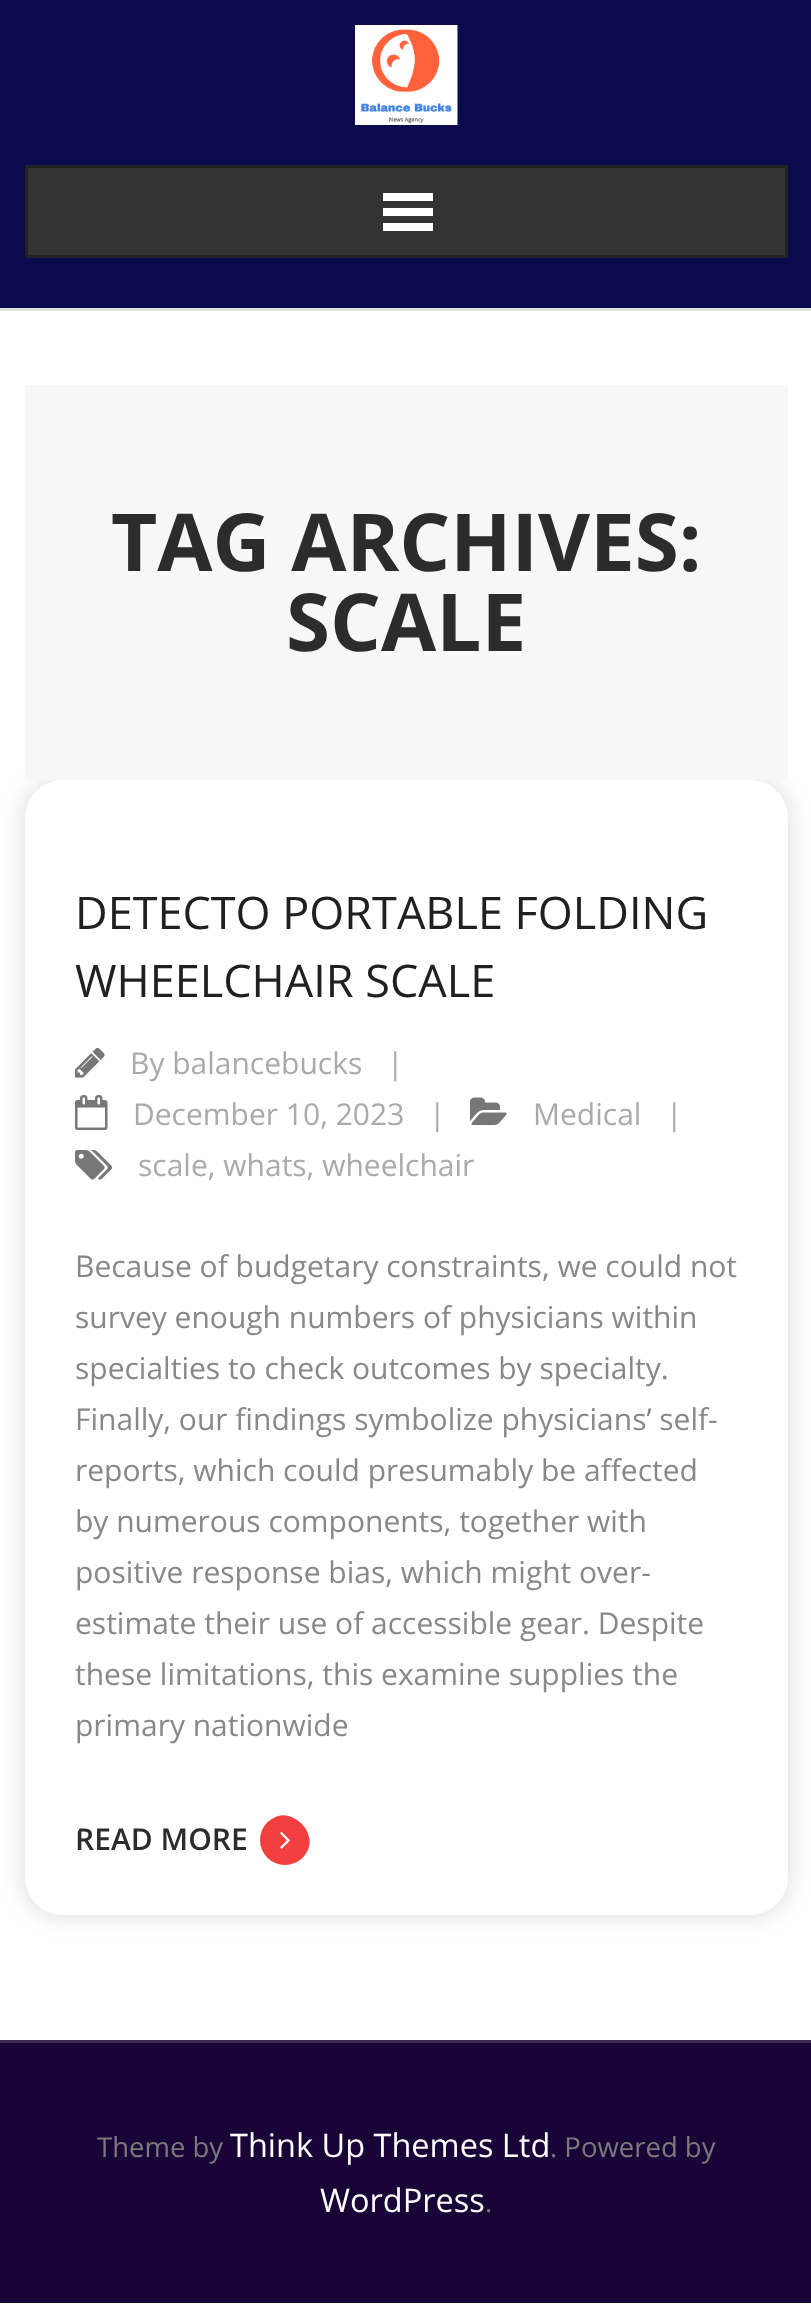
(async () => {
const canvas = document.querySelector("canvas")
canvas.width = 811
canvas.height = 2313
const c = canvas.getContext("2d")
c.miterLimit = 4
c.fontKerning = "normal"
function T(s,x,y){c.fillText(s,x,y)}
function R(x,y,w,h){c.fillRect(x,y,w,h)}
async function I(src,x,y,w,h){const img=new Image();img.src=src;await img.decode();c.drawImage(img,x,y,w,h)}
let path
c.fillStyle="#fff"
R(0,0,811,2313)
c.fillStyle="#0b0a4c"
R(0,0,811,308)
c.fillStyle="#e0e0e0"
R(0,308,811,3)
await I("1.png",355,25,103,100)
c.fillStyle="#333"
c.beginPath()
c.rect(26.5,166.5,760,90)
c.fill()
c.strokeStyle="#222"
c.lineWidth=3
c.stroke()
c.fillStyle="#fff"
R(383,193,50,8)
R(383,208,50,8)
R(383,223,50,8)
c.save()
path = new Path2D("M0 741h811v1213h-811zm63 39h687c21 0 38 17 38 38v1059c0 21-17 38-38 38h-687c-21 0-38-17-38-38v-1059c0-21 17-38 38-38z")
c.clip(path,"evenodd")
c.fillStyle="#00000026"
c.filter="blur(12.5px)"
c.beginPath()
c.roundRect(25,780,763,1135,38)
c.fill()
c.filter="none"
c.restore()
c.fillStyle="#f7f7f7"
R(25,385,763,395)
c.font="bold 80px Open Sans"
c.fillStyle="#2c2c2c"
T("TAG ARCHIVES:",111,571)
T("SCALE",286,651)
c.font="45px Open Sans"
c.fillStyle="#202020"
T("DETECTO PORTABLE FOLDING",75,929)
T("WHEELCHAIR SCALE",75,997)
await I("2.png",75,1047,30,31)
c.font="30px Open Sans"
c.fillStyle="#aaa"
T("By balancebucks",130,1074)
T("|",387,1074)
await I("3.png",75,1095,33,35)
T("December 10, 2023",133,1125)
T("|",429,1125)
await I("4.png",470,1097,37,28)
T("Medical",533,1125)
T("|",666,1125)
await I("5.png",75,1150,38,30)
T("scale, whats, wheelchair",138,1176)
c.fillStyle="#888"
T("Because of budgetary constraints, we could not",75,1277)
T("survey enough numbers of physicians within",75,1328)
T("specialties to check outcomes by specialty.",75,1379)
T("Finally, our findings symbolize physicians’ self-",75,1430)
T("reports, which could presumably be affected",75,1481)
T("by numerous components, together with",75,1532)
T("positive response bias, which might over-",75,1583)
T("estimate their use of accessible gear. Despite",75,1634)
T("these limitations, this examine supplies the",75,1685)
T("primary nationwide",75,1736)
c.save()
c.beginPath()
c.roundRect(75,1815,235,58,29)
c.clip()
c.font="600 30px Open Sans"
c.fillStyle="#2c2c2c"
T("READ MORE",75,1850)
c.fillStyle="#f33f3f"
c.beginPath()
c.arc(285,1840,25,0,7)
c.fill()
c.restore()
await I("6.png",280,1832,10,17)
c.fillStyle="#190437"
R(0,2043,811,260)
c.fillStyle="#3b2954"
R(0,2040,811,3)
c.font="27.5px Open Sans"
c.fillStyle="#7a7a7a"
T("Theme by",97,2157)
c.font="32.5px Open Sans"
c.fillStyle="#fff"
T("Think Up Themes Ltd",230,2157)
c.font="27.5px Open Sans"
c.fillStyle="#7a7a7a"
T(". Powered by",550,2157)
c.font="32.5px Open Sans"
c.fillStyle="#fff"
T("WordPress",320,2212)
c.font="27.5px Open Sans"
c.fillStyle="#7a7a7a"
T(".",485,2212)
})()
